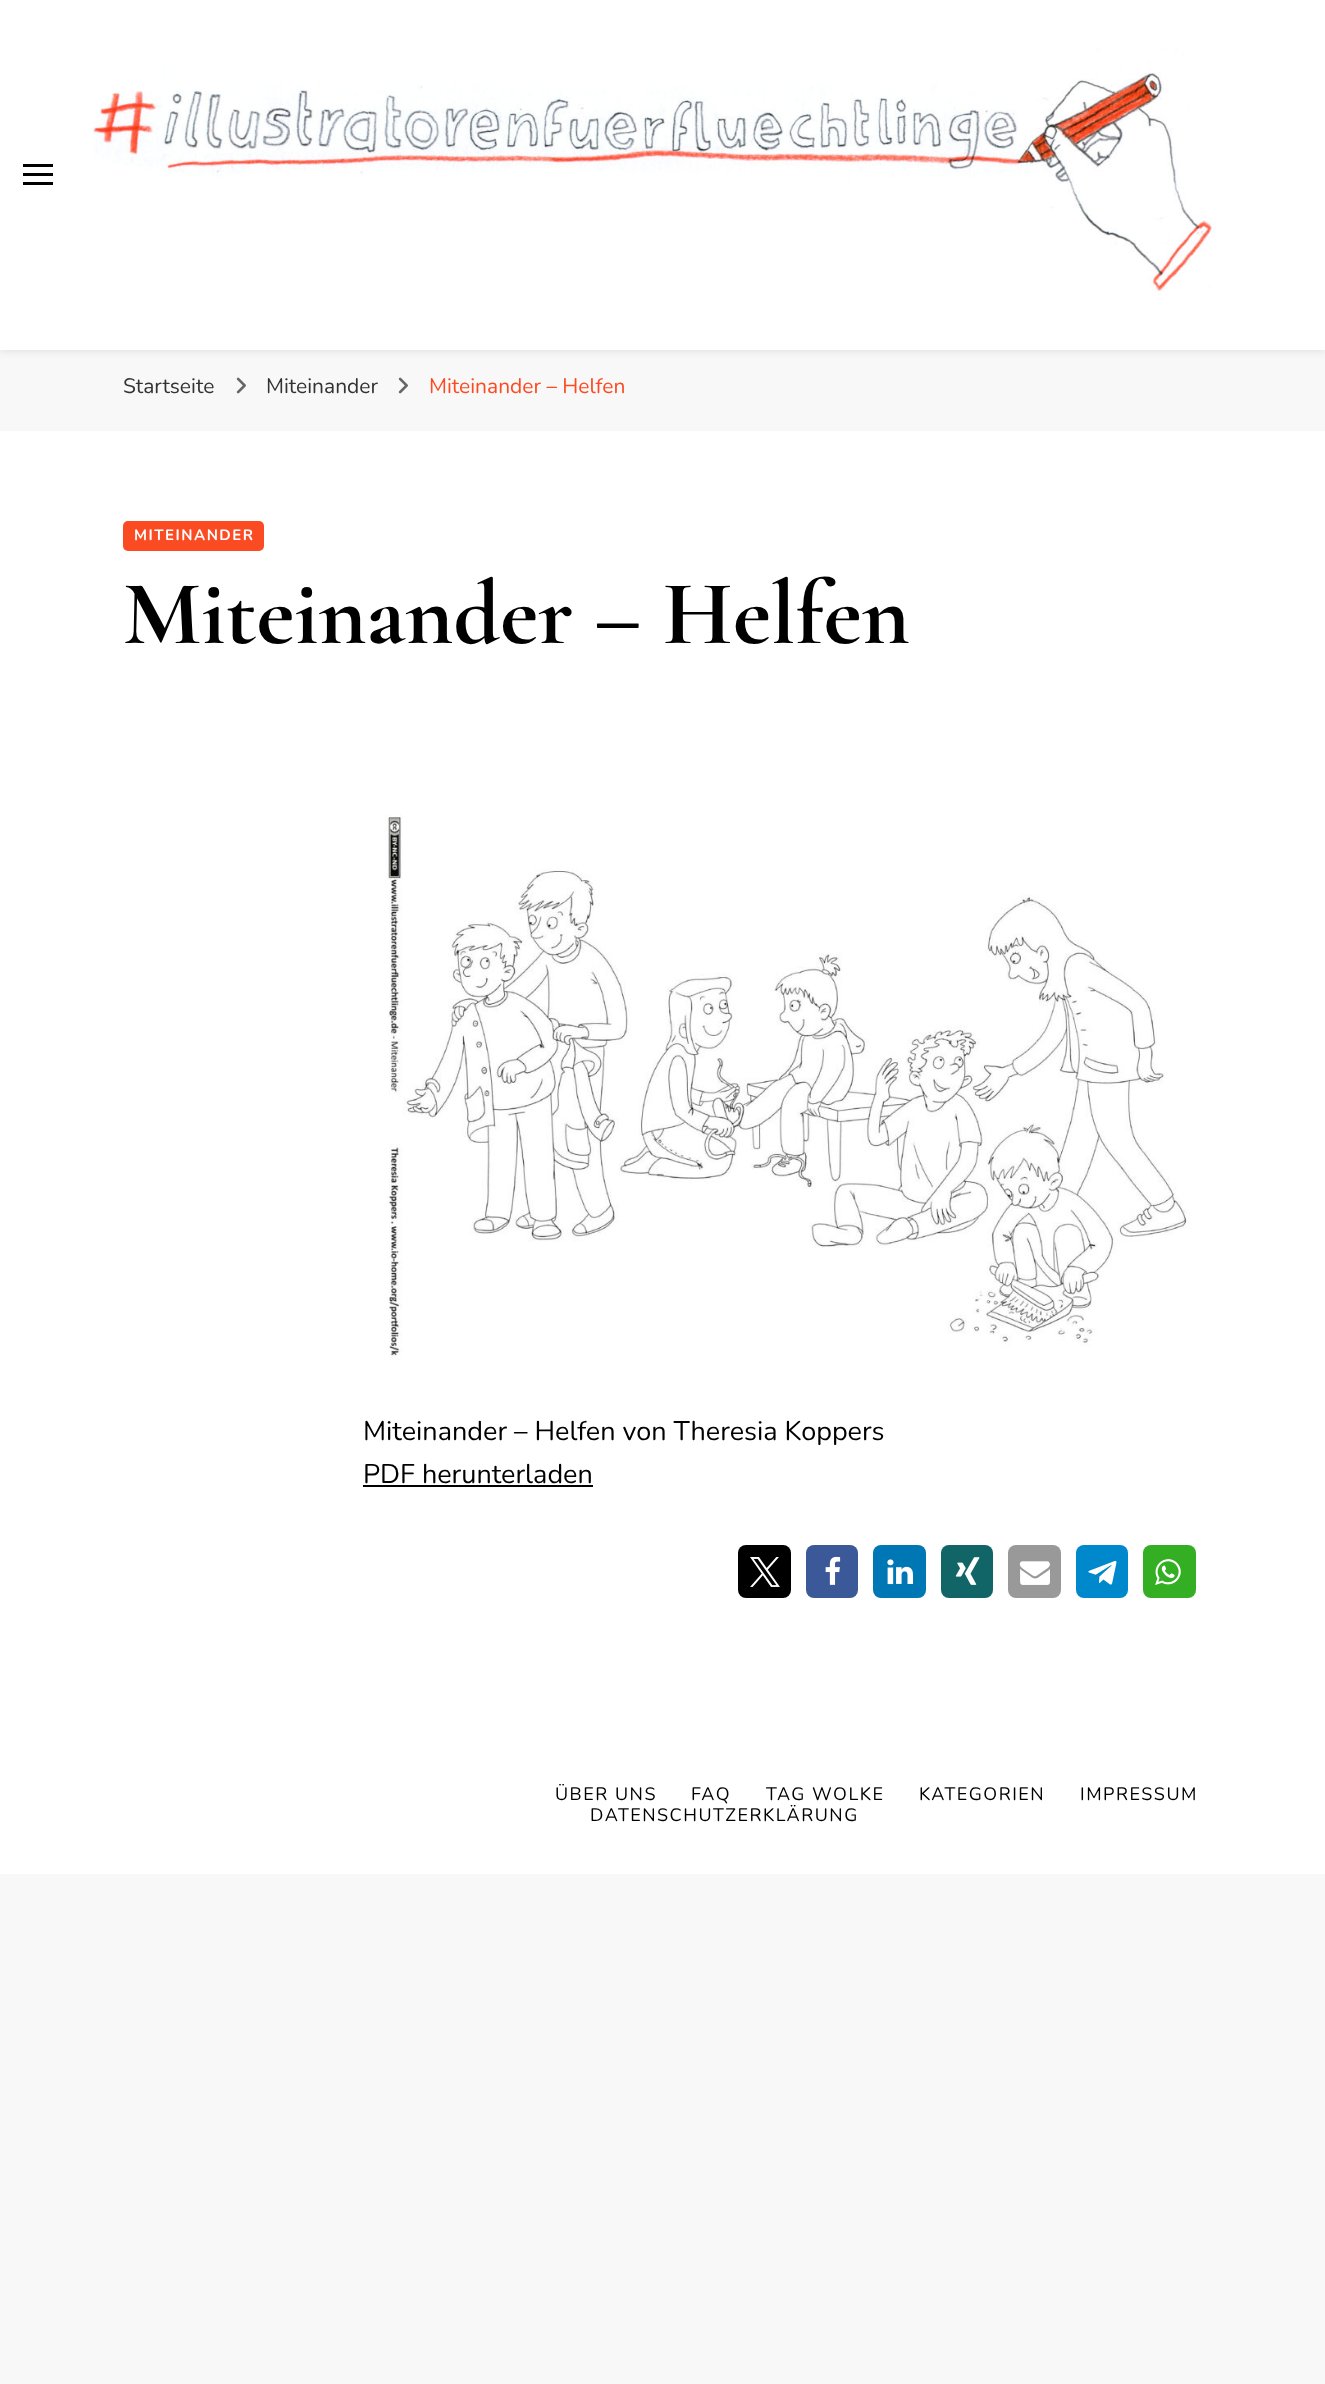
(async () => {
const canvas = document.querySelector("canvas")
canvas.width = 1325
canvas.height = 2384
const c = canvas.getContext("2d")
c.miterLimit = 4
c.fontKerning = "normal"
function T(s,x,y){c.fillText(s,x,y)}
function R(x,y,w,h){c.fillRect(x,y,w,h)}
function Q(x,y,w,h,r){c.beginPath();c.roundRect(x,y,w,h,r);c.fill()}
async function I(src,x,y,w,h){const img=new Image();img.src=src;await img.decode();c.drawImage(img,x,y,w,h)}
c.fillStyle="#f8f8f8"
R(0,0,1325,2384)
c.fillStyle="#0000001a"
c.filter="blur(4px)"
c.beginPath()
c.rect(0,2,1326,349)
c.fill()
c.filter="none"
c.fillStyle="#fff"
R(0,0,1325,350)
c.fillStyle="#000"
R(23,164,30,3)
R(23,173,30,3)
R(23,182,30,3)
await I("1.png",93,48,1123,248)
c.font="21px Nunito"
c.fillStyle="#333"
T("Startseite",123,393)
await I("2.png",236,377,10,17)
T("Miteinander",266,393)
await I("2.png",398,377,10,17)
c.fillStyle="#fb4b22"
T("Miteinander – Helfen",429,393)
c.fillStyle="#fff"
R(0,431,1325,1443)
c.fillStyle="#fb4b22"
Q(123,521,141,30,5)
c.letterSpacing="1.5px"
c.font="bold 15px Nunito"
c.fillStyle="#fff"
T("MITEINANDER",134,540)
c.letterSpacing="0px"
c.font="bold 91.5px Cormorant Garamond"
c.fillStyle="#000"
T("Miteinander – Helfen",123,643)
await I("3.png",385,815,805,545)
c.font="27px Nunito"
T("Miteinander – Helfen von Theresia Koppers",363,1440)
T("PDF herunterladen",363,1483)
R(363,1485,230,2)
Q(738,1545,53,53,8)
await I("4.png",750,1557,30,30)
c.fillStyle="#3b5998"
Q(806,1545,52,53,8)
await I("5.png",825,1556,16,29)
c.fillStyle="#0077b5"
Q(873,1545,53,53,8)
await I("6.png",887,1559,27,26)
c.fillStyle="#126567"
Q(941,1545,52,53,8)
await I("7.png",955,1557,25,28)
c.fillStyle="#999"
Q(1008,1545,53,53,8)
await I("8.png",1019,1561,31,24)
c.fillStyle="#08c"
Q(1076,1545,52,53,8)
await I("9.png",1088,1560,29,25)
c.fillStyle="#34af23"
Q(1143,1545,53,53,8)
await I("10.png",1155,1559,26,26)
c.letterSpacing="1.5px"
c.font="18px Nunito"
c.fillStyle="#000"
T("ÜBER UNS",555,1800)
T("FAQ",691,1800)
T("TAG WOLKE",766,1800)
T("KATEGORIEN",919,1800)
T("IMPRESSUM",1080,1800)
T("DATENSCHUTZERKLÄRUNG",590,1821)
})()
